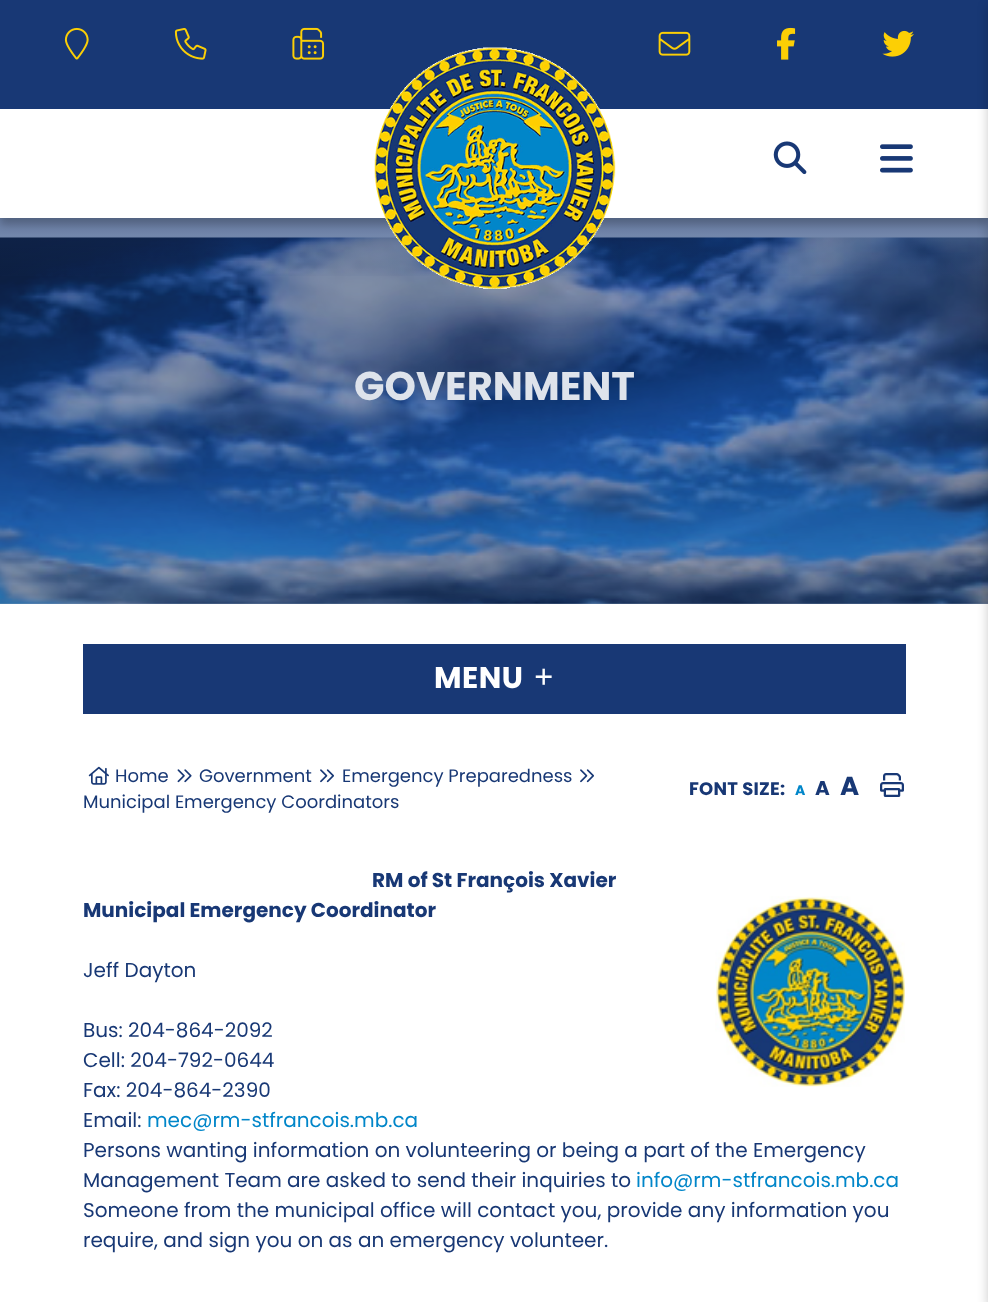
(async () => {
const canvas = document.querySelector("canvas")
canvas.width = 988
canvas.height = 1302
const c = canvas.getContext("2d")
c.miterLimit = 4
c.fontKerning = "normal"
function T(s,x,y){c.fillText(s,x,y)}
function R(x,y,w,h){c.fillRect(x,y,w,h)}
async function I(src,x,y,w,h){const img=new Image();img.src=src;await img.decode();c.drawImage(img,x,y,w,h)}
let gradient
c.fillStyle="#fff"
R(0,0,988,1302)
c.fillStyle="#8798b7"
R(0,218,988,386)
await I("10.png",0,237,988,367)
gradient = c.createLinearGradient(494,0,494,284)
gradient.addColorStop(.16,"#183875ed")
gradient.addColorStop(1,"#18387500")
c.fillStyle = gradient
R(0,218,988,58)
c.fillStyle="#0000003b"
c.filter="blur(4px)"
c.beginPath()
c.rect(0,8,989,217)
c.fill()
c.filter="none"
c.fillStyle="#183875"
R(0,0,988,109)
c.fillStyle="#fff"
R(0,109,988,109)
await I("1.png",64,27,25,33)
await I("2.png",174,28,33,32)
await I("3.png",292,27,33,33)
await I("4.png",658,31,33,25)
await I("5.png",777,27,19,33)
await I("6.png",882,30,32,27)
await I("7.png",374,47,242,242)
await I("8.png",773,141,34,34)
await I("9.png",880,144,33,29)
c.fillStyle="#00000040"
c.filter="blur(6px)"
c.beginPath()
c.rect(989,6,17,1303)
c.fill()
c.filter="none"
c.font="bold 40px Poppins"
c.fillStyle="#dee3eb"
T("GOVERNMENT",354,400)
c.fillStyle="#183875"
R(83,644,823,70)
c.letterSpacing="0.5px"
c.font="bold 30px Poppins"
c.fillStyle="#fff"
T("MENU",434,688)
c.font="bold 34px Liberation Serif"
T("+",534,688)
await I("11.png",88,766,21,19)
c.letterSpacing="0px"
c.font="18px Poppins"
c.fillStyle="#183875"
T("Home",115,782)
await I("12.png",177,769,15,14)
T("Government",199,782)
await I("13.png",320,769,14,14)
T("Emergency Preparedness",342,782)
await I("13.png",580,769,14,14)
T("Municipal Emergency Coordinators",83,808)
c.letterSpacing="0.25px"
c.font="bold 18px Poppins"
T("FONT SIZE:",689,795)
c.letterSpacing="0px"
c.font="bold 14px Poppins"
c.fillStyle="#0186c9"
T("A",795,795)
c.font="bold 20px Poppins"
c.fillStyle="#183875"
T("A",815,795)
c.font="bold 26px Poppins"
T("A",840,795)
await I("14.png",880,773,24,24)
c.font="bold 20px Poppins"
T("RM of St François Xavier",372,887)
T("Municipal Emergency Coordinator",83,917)
await I("15.png",715,896,190,191)
c.font="20px Poppins"
T("Jeff Dayton",83,977)
T("Bus: 204-864-2092",83,1037)
T("Cell: 204-792-0644",83,1067)
T("Fax: 204-864-2390",83,1097)
T("Email:",83,1127)
c.fillStyle="#0186c9"
T("mec@rm-stfrancois.mb.ca",147,1127)
c.fillStyle="#183875"
T("Persons wanting information on volunteering or being a part of the Emergency",83,1157)
T("Management Team are asked to send their inquiries to",83,1187)
c.fillStyle="#0186c9"
T("info@rm-stfrancois.mb.ca",636,1187)
c.fillStyle="#183875"
T("Someone from the municipal office will contact you, provide any information you",83,1217)
T("require, and sign you on as an emergency volunteer.",83,1247)
})()
